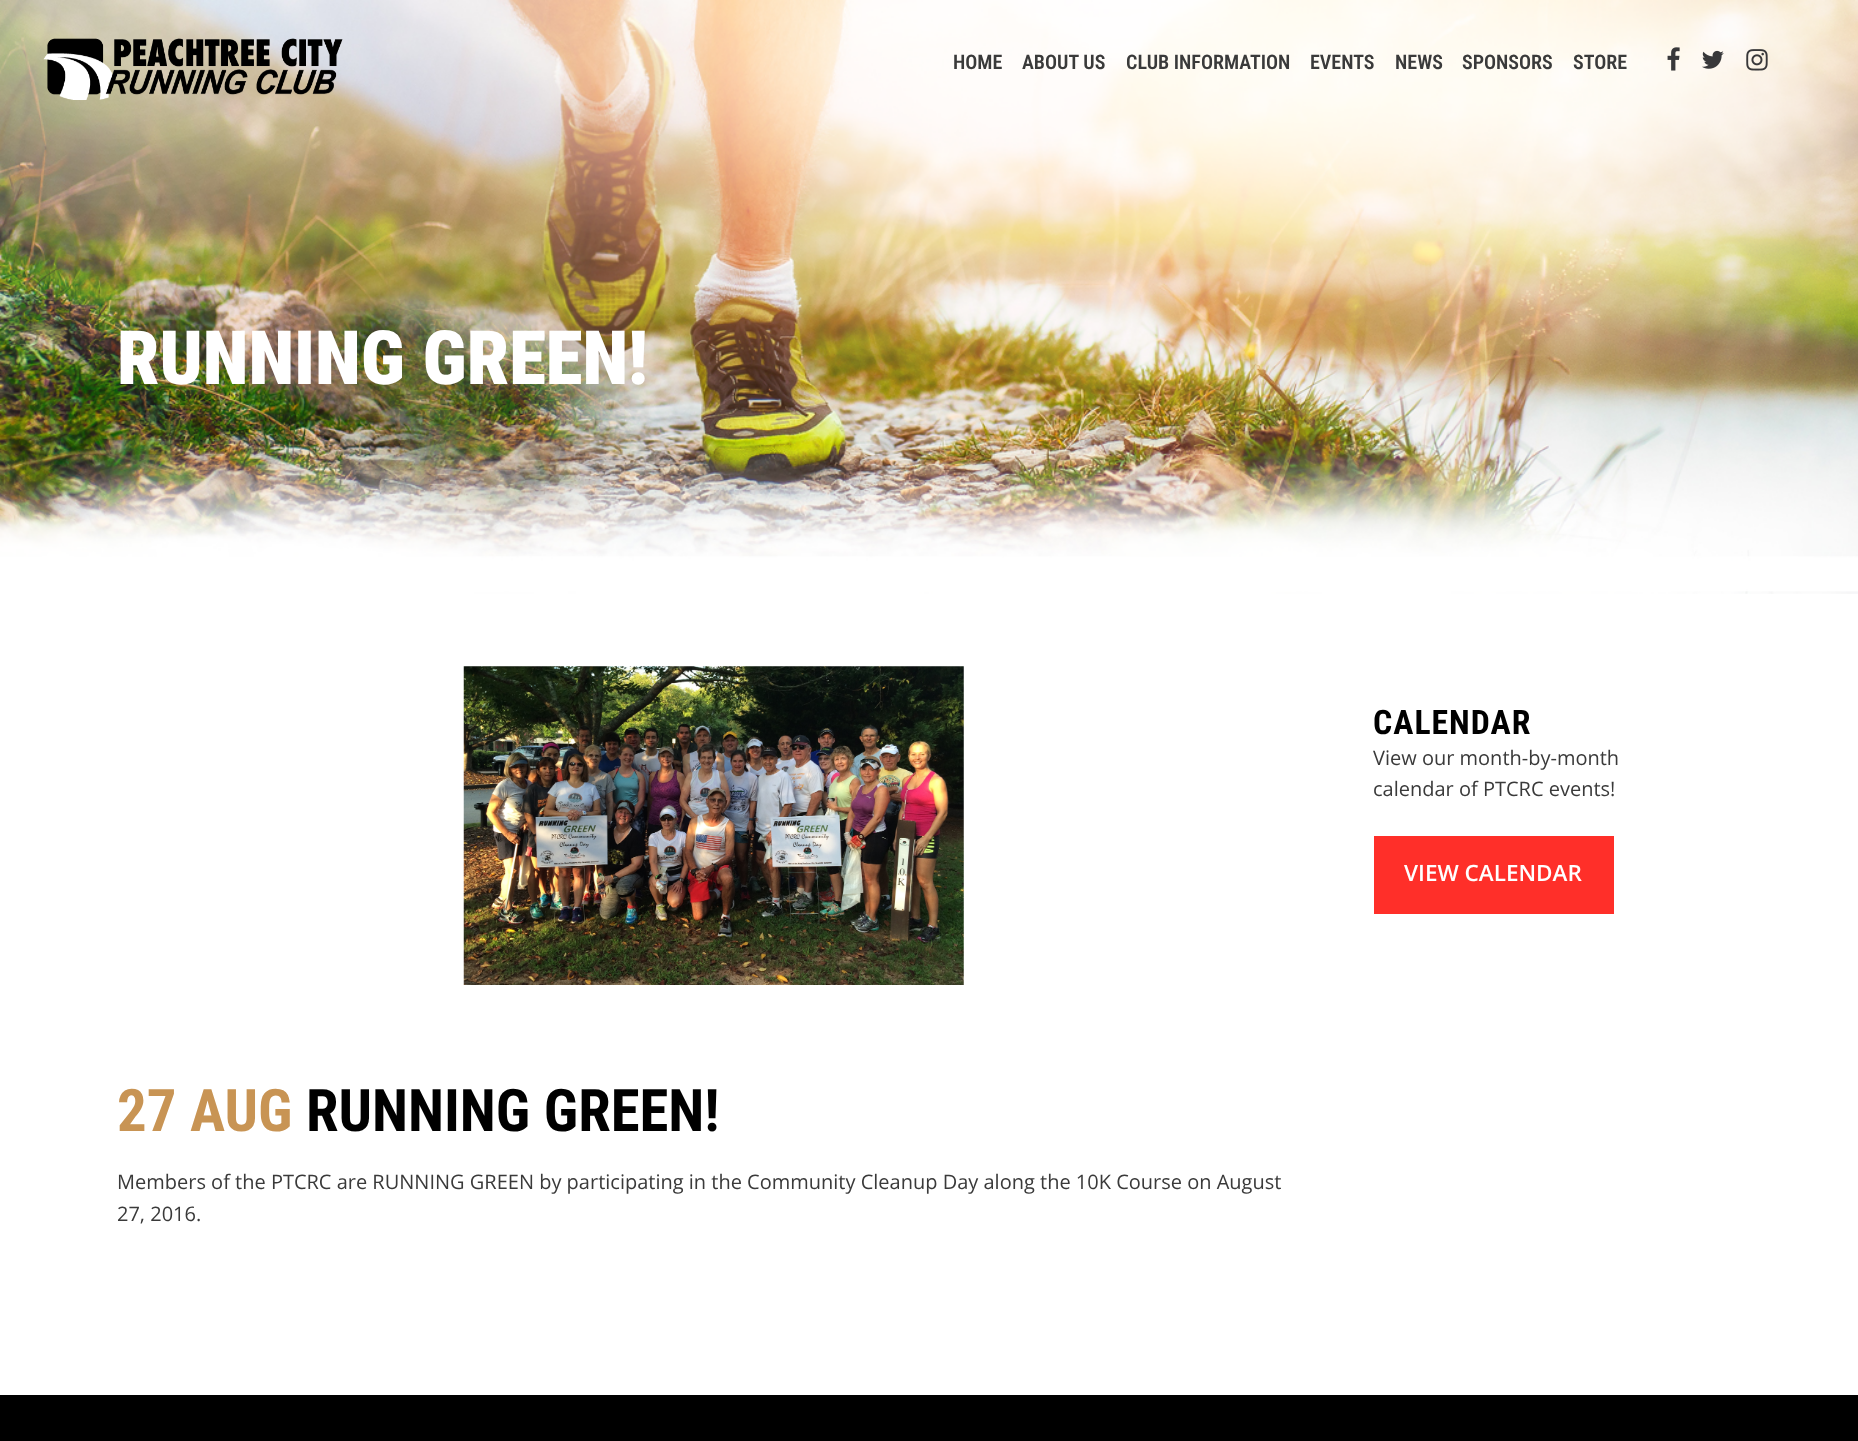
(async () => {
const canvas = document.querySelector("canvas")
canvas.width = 1858
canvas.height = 1441
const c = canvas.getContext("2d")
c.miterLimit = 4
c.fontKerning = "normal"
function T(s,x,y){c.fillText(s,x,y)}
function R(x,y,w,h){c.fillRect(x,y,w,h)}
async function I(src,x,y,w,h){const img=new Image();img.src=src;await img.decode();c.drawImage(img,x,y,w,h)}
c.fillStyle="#fff"
R(0,0,1858,1441)
await I("5.png",0,0,1858,594)
await I("1.png",43,38,300,62)
c.font="600 20px Roboto Condensed"
c.fillStyle="#3a3a3a"
T("HOME",953,69)
T("ABOUT US",1022,69)
T("CLUB INFORMATION",1126,69)
T("EVENTS",1310,69)
T("NEWS",1395,69)
T("SPONSORS",1462,69)
T("STORE",1573,69)
await I("2.png",1667,47,13,24)
await I("3.png",1702,50,22,19)
await I("4.png",1746,49,22,22)
c.font="900 75px Roboto Condensed"
c.fillStyle="#fff"
T("RUNNING GREEN!",117,384)
c.letterSpacing="1px"
c.font="bold 33.75px Roboto Condensed"
c.fillStyle="#000"
T("CALENDAR",1373,734)
c.letterSpacing="0px"
c.font="20px Open Sans"
c.fillStyle="#3a3a3a"
T("View our month-by-month",1373,765)
T("calendar of PTCRC events!",1373,796)
c.fillStyle="#ff2f29"
R(1374,836,240,78)
c.font="600 22.5px Open Sans"
c.fillStyle="#fff"
T("VIEW CALENDAR",1404,881)
await I("6.png",463,666,501,319)
c.font="bold 58.75px Roboto Condensed"
c.fillStyle="#c89454"
T("27 AUG",117,1131)
c.fillStyle="#000"
T("RUNNING GREEN!",306,1131)
c.font="20px Open Sans"
c.fillStyle="#3a3a3a"
T("Members of the PTCRC are RUNNING GREEN by participating in the Community Cleanup Day along the 10K Course on August",117,1189)
T("27, 2016.",117,1221)
c.fillStyle="#000"
R(0,1395,1858,46)
})()
